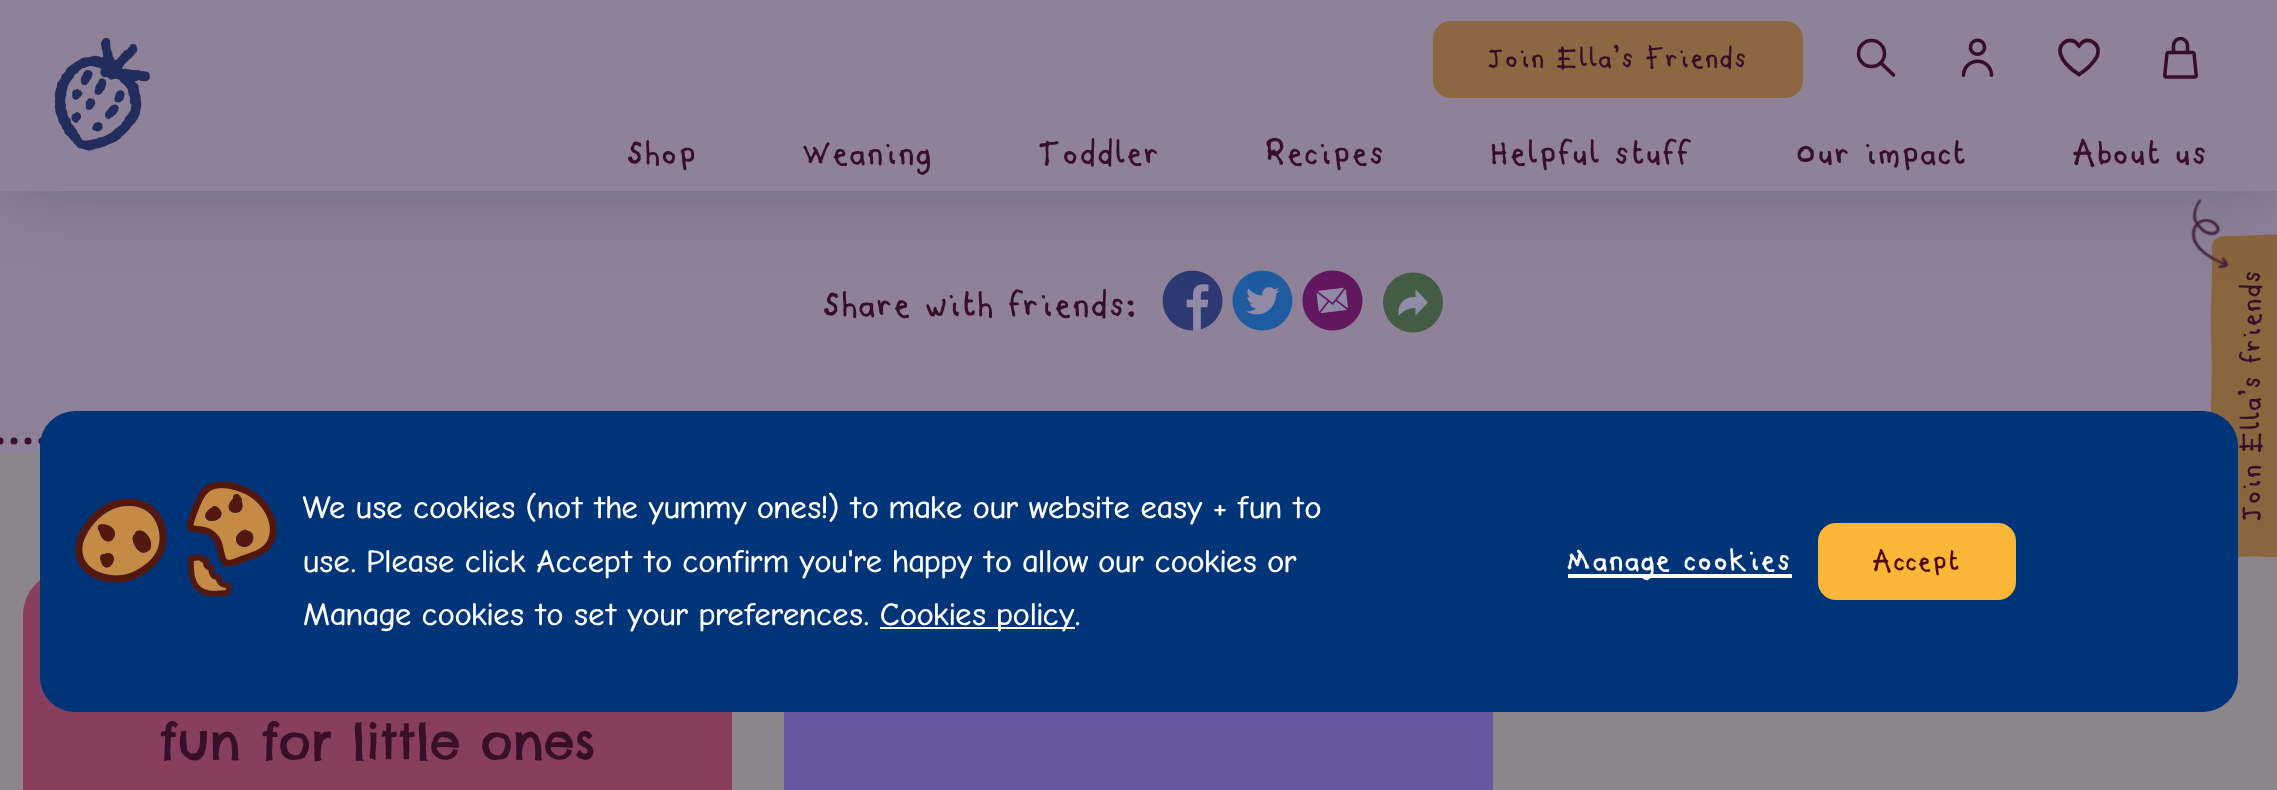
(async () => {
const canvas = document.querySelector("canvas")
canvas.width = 2277
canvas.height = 790
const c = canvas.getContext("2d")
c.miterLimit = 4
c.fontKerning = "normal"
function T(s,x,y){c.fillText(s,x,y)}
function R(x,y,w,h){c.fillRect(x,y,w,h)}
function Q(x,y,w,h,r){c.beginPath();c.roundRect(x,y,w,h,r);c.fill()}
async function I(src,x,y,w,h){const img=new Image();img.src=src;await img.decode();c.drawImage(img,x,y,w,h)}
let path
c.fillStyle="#8e8198"
R(0,0,2277,790)
await I("4.png",1162,270,61,61)
await I("5.png",1232,270,61,61)
await I("6.png",1302,270,61,61)
c.fillStyle="#445c43"
c.beginPath()
c.arc(1413,302.5,30,0,7)
c.fill()
c.fillStyle="#908ba6"
path = new Path2D("M1428 302.5l-12.5-13.5v8h-2.5c-8 0-14.5 6.5-14.5 14.5v4.5c5-5.5 10-8 17-8v7.5z")
c.fill(path)
path = new Path2D("M0 441h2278.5")
c.strokeStyle="#370f29"
c.lineWidth=7
c.lineCap="round"
c.setLineDash([0,14])
c.stroke(path)
c.fillStyle="#8d858c"
R(0,453,2277,337)
await I("8.png",2210,234,67,323)
await I("7.png",2191,198,39,71)
c.fillStyle="#100b2633"
c.filter="blur(44px)"
c.beginPath()
c.rect(0,0,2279,191)
c.fill()
c.filter="none"
c.fillStyle="#8e8198"
R(0,0,2277,191)
await I("1.png",54,37,96,114)
c.fillStyle="#8d6642"
c.beginPath()
c.roundRect(1434,22,368,75,17)
c.fill()
c.strokeStyle="#8d6642"
c.lineWidth=2
c.setLineDash([])
c.stroke()
c.font="35px 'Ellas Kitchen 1'"
c.fillStyle="#370f29"
T("Join Ella's Friends",1487,68)
c.beginPath()
c.arc(1871.5,53.5,13,0,7)
c.strokeStyle="#370f29"
c.lineWidth=3.5
c.stroke()
path = new Path2D("M1881 63l12.5 12")
c.stroke(path)
await I("2.png",1961,38,33,39)
path = new Path2D("M2091 64.5c-3.5 4-7.5 7-12 10c-7-4.5-16.5-12-18.5-20.5c-2.5-8.5 5.5-16.5 14-12.5c2 1 3 3 4.5 4.5c1.5-1.5 2.5-3.5 4.5-4.5c7.5-3.5 15.5 3 14.5 11c-.5 4.5-3.5 8.5-7 12z")
c.lineWidth=3.7
c.lineCap="butt"
c.stroke(path)
await I("3.png",2163,37,35,42)
c.font="42px 'Ellas Kitchen 1'"
T("Shop",627,165)
T("Weaning",802,165)
T("Toddler",1038,165)
T("Recipes",1265,165)
T("Helpful stuff",1491,165)
T("Our impact",1796,165)
T("About us",2073,165)
c.font="43.75px 'Ellas Kitchen 1'"
T("Share with friends:",823,317)
c.fillStyle="#873f5d"
Q(23,571,709,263,44)
c.font="49px Chelsea Market"
c.fillStyle="#370f29"
T("fun for little ones",159,759)
c.fillStyle="#6659a1"
R(784,712,709,78)
c.font="35px 'Ellas Kitchen 1'"
c.fillStyle="#370f29"
c.save()
c.translate(2261,522)
c.rotate(-90 * Math.PI / 180)
c.fillText("Join Ella’s friends",0,0)
c.restore()
c.fillStyle="#003479"
Q(40,411,2198,301,35)
await I("9.png",75,481,202,116)
c.font="500 31.5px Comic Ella"
c.fillStyle="#fff"
T("We use cookies (not the yummy ones!) to make our website easy + fun to",303,518)
T("use. Please click Accept to confirm you're happy to allow our cookies or",303,572)
T("Manage cookies to set your preferences.",303,625)
R(880,627,195,2)
T("Cookies policy.",880,625)
R(1568,574,224,4)
c.font="38.5px 'Ellas Kitchen 1'"
T("Manage cookies",1567,571)
c.fillStyle="#fab637"
c.beginPath()
c.roundRect(1819,524,196,75,17)
c.fill()
c.strokeStyle="#fab637"
c.lineWidth=2
c.stroke()
c.font="35px 'Ellas Kitchen 1'"
c.fillStyle="#4e0706"
T("Accept",1873,571)
})()
